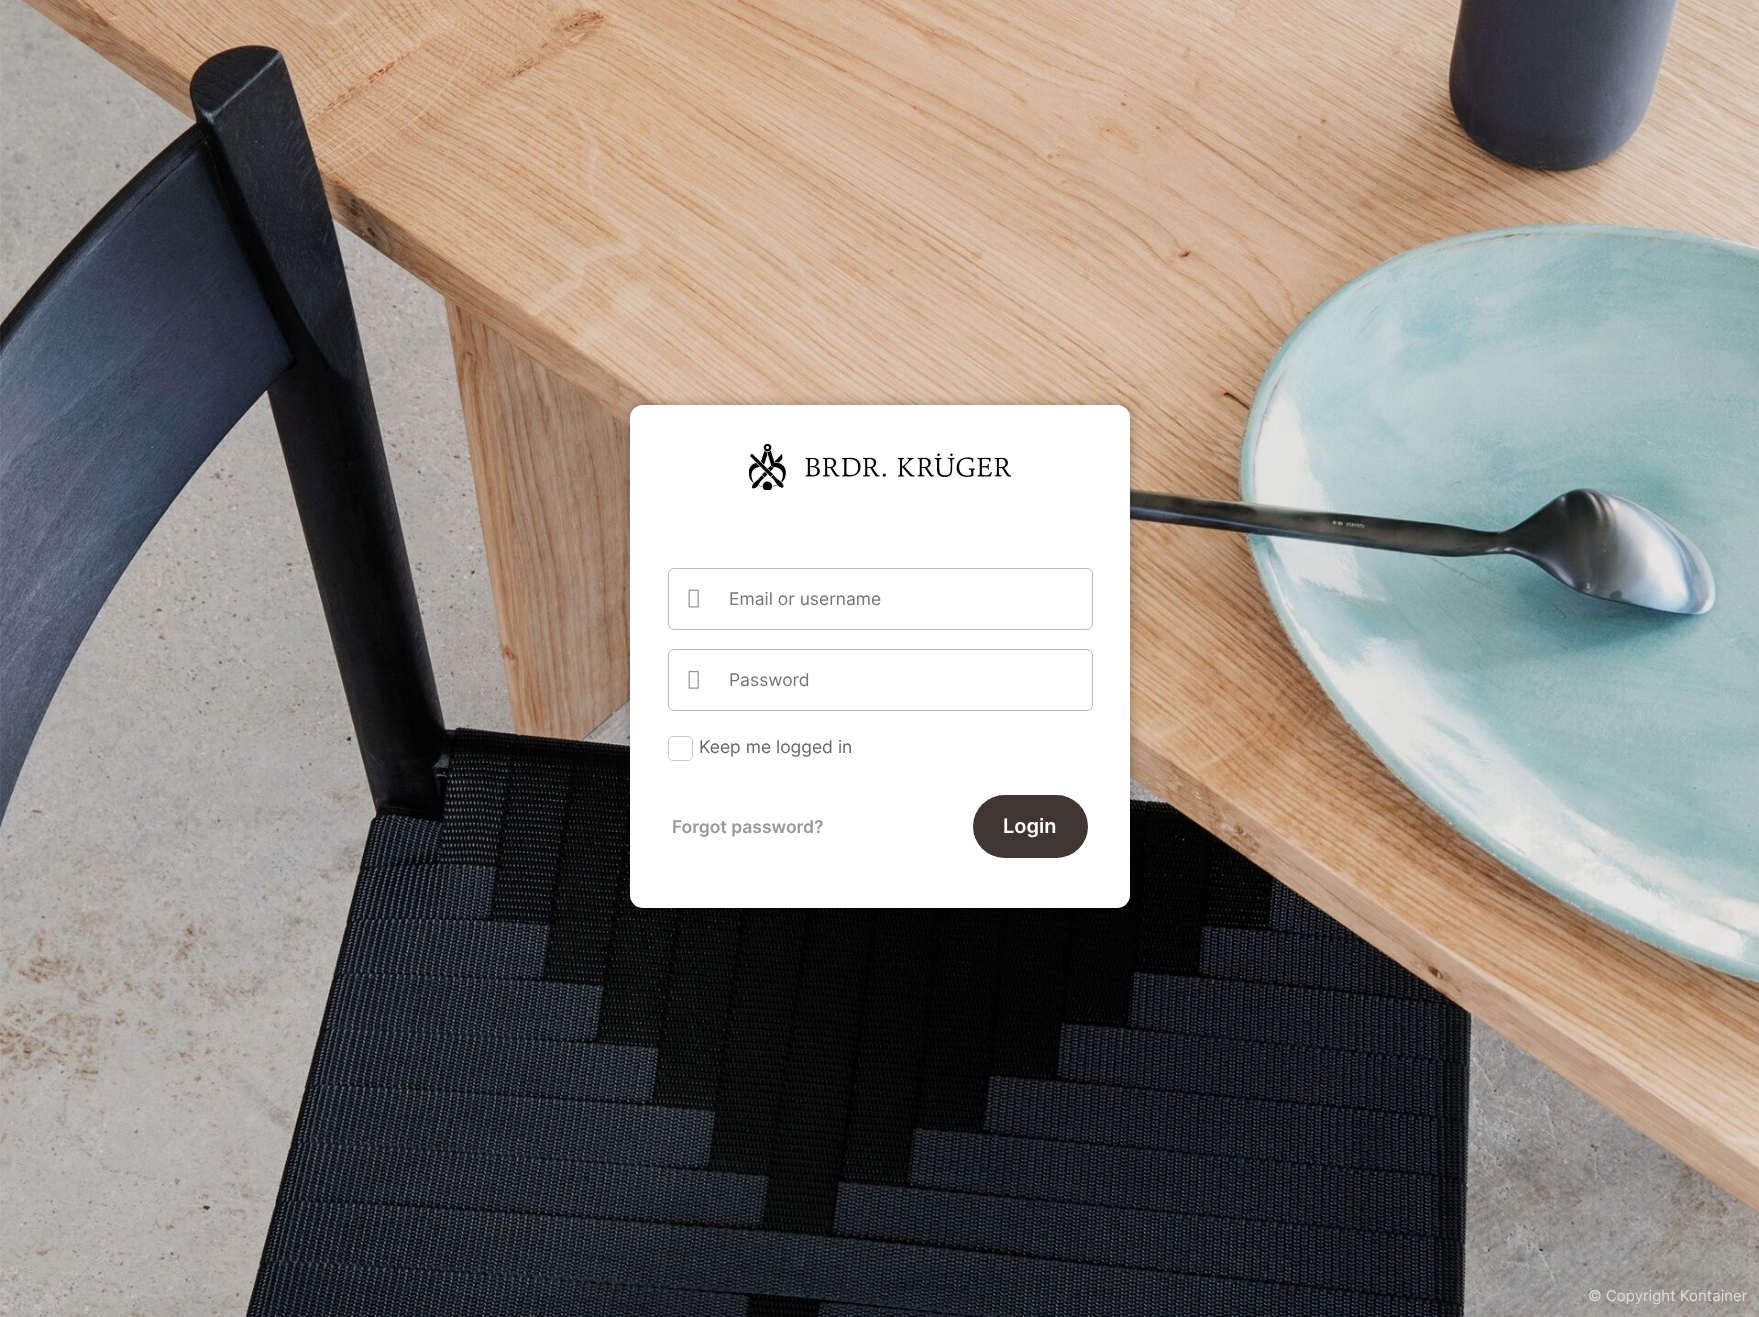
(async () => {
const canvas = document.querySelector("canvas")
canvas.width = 1759
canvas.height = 1317
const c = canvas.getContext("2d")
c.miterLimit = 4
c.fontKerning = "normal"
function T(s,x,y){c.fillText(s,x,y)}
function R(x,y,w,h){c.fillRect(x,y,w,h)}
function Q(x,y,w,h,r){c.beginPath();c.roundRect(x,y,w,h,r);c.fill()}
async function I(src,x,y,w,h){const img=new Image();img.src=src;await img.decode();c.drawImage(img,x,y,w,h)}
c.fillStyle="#fff"
R(0,0,1759,1317)
await I("1.png",0,0,1759,1317)
c.fillStyle="#0000004d"
c.filter="blur(6px)"
c.beginPath()
c.roundRect(630,405,500,503,13)
c.fill()
c.filter="none"
c.fillStyle="#fff"
Q(630,405,500,503,13)
await I("2.png",749,444,262,46)
c.beginPath()
c.roundRect(668.5,568.5,424,61,5.5)
c.strokeStyle="#bbb"
c.stroke()
await I("3.png",688,589,11,19)
c.font="17.5px Inter"
c.fillStyle="#757575"
T("Email or username",729,605)
c.beginPath()
c.roundRect(668.5,649.5,424,61,5.5)
c.stroke()
await I("4.png",688,670,11,19)
T("Password",729,686)
c.beginPath()
c.roundRect(668.5,736.5,24,24,4.5)
c.strokeStyle="#ccc"
c.stroke()
c.fillStyle="#666"
T("Keep me logged in",699,753)
c.font="600 17.5px Inter"
c.fillStyle="#999"
T("Forgot password?",672,833)
c.fillStyle="#403531"
Q(973,795,115,63,31.5)
c.font="600 20px Inter"
c.fillStyle="#fff"
T("Login",1003,833)
c.font="15px Inter"
c.fillStyle="#ddd"
T("© Copyright Kontainer",1588,1301)
})()
